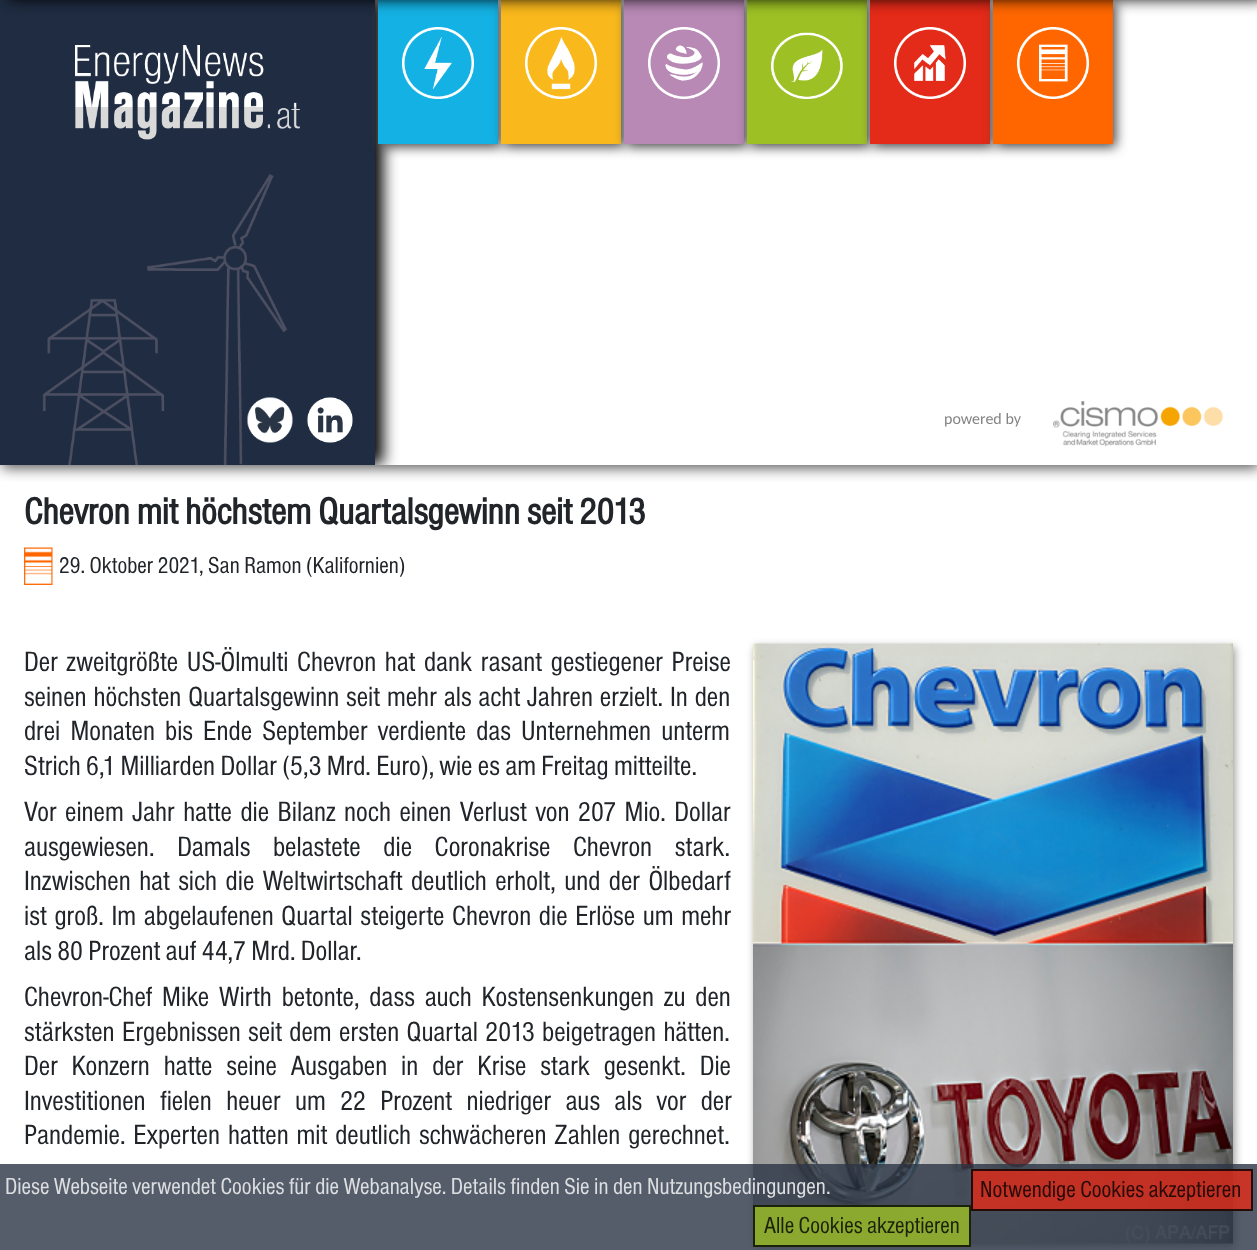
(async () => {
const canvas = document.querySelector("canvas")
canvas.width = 1257
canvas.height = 1250
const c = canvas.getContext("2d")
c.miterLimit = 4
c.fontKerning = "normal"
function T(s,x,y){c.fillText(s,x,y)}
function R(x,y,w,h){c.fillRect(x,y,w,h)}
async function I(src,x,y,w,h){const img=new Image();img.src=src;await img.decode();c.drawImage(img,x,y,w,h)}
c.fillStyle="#fff"
R(0,0,1257,1250)
c.save()
c.beginPath()
c.rect(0,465,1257,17)
c.clip()
c.fillStyle="#555"
c.filter="blur(7px)"
c.beginPath()
c.rect(2,3,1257,465)
c.fill()
c.filter="none"
c.restore()
c.save()
c.beginPath()
c.rect(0,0,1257,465)
c.clip()
c.fillStyle="#000"
c.filter="blur(7.5px)"
c.beginPath()
c.rect(8,-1,375,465)
c.fill()
c.filter="none"
c.restore()
await I("1.png",0,0,375,465)
c.fillStyle="#444"
c.filter="blur(6px)"
c.beginPath()
c.rect(381,3,120,144)
c.fill()
c.filter="none"
c.fillStyle="#14b2e4"
R(378,0,120,144)
c.fillStyle="#444"
c.filter="blur(6px)"
c.beginPath()
c.rect(504,3,120,144)
c.fill()
c.filter="none"
c.fillStyle="#f9b81c"
R(501,0,120,144)
c.fillStyle="#444"
c.filter="blur(6px)"
c.beginPath()
c.rect(627,3,120,144)
c.fill()
c.filter="none"
c.fillStyle="#b789b4"
R(624,0,120,144)
c.fillStyle="#444"
c.filter="blur(6px)"
c.beginPath()
c.rect(750,3,120,144)
c.fill()
c.filter="none"
c.fillStyle="#9dc125"
R(747,0,120,144)
c.fillStyle="#444"
c.filter="blur(6px)"
c.beginPath()
c.rect(873,3,120,144)
c.fill()
c.filter="none"
c.fillStyle="#e42a18"
R(870,0,120,144)
c.fillStyle="#444"
c.filter="blur(6px)"
c.beginPath()
c.rect(996,3,120,144)
c.fill()
c.filter="none"
c.fillStyle="#f60"
R(993,0,120,144)
c.fillStyle="#000"
c.filter="blur(7.5px)"
c.beginPath()
c.rect(8,-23,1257,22)
c.fill()
c.filter="none"
await I("2.png",75,45,225,95)
await I("3.png",247,397,46,46)
await I("4.png",307,397,46,46)
await I("5.png",402,27,72,72)
await I("6.png",525,27,72,72)
await I("7.png",648,27,72,72)
await I("8.png",771,32,72,67)
await I("9.png",894,27,72,72)
await I("10.png",1017,27,72,72)
c.font="16px Carlito"
c.fillStyle="#848484"
T("powered by",944,424)
await I("11.png",1053,401,171,46)
c.font="bold 38.4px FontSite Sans"
c.fillStyle="#212529"
T("Chevron mit höchstem Quartalsgewinn seit 2013",24,524)
await I("12.png",24,547,29,38)
c.font="24px FontSite Sans"
T("29. Oktober 2021, San Ramon (Kalifornien)",59,573)
c.wordSpacing="3.25px"
c.font="28.8px FontSite Sans"
T("Der zweitgrößte US-Ölmulti Chevron hat dank rasant gestiegener Preise",24,671)
c.wordSpacing="1.5px"
T("seinen höchsten Quartalsgewinn seit mehr als acht Jahren erzielt. In den",24,706)
c.wordSpacing="4.75px"
T("drei Monaten bis Ende September verdiente das Unternehmen unterm",24,740)
c.wordSpacing="0px"
T("Strich 6,1 Milliarden Dollar (5,3 Mrd. Euro), wie es am Freitag mitteilte.",24,775)
c.fillStyle="#999"
c.filter="blur(4px)"
c.beginPath()
c.rect(755,647,480,600)
c.fill()
c.filter="none"
await I("13.png",753,643,480,601)
c.wordSpacing="3.1px"
c.fillStyle="#212529"
T("Vor einem Jahr hatte die Bilanz noch einen Verlust von 207 Mio. Dollar",24,821)
c.wordSpacing="17.25px"
T("ausgewiesen. Damals belastete die Coronakrise Chevron stark.",24,856)
c.wordSpacing="3.1px"
T("Inzwischen hat sich die Weltwirtschaft deutlich erholt, und der Ölbedarf",24,890)
c.wordSpacing="2.25px"
T("ist groß. Im abgelaufenen Quartal steigerte Chevron die Erlöse um mehr",24,925)
c.wordSpacing="0px"
T("als 80 Prozent auf 44,7 Mrd. Dollar.",24,960)
c.wordSpacing="4.5px"
T("Chevron-Chef Mike Wirth betonte, dass auch Kostensenkungen zu den",24,1006)
c.wordSpacing="2px"
T("stärksten Ergebnissen seit dem ersten Quartal 2013 beigetragen hätten.",24,1041)
c.wordSpacing="8.5px"
T("Der Konzern hatte seine Ausgaben in der Krise stark gesenkt. Die",24,1075)
c.wordSpacing="9px"
T("Investitionen fielen heuer um 22 Prozent niedriger aus als vor der",24,1110)
c.wordSpacing="2.5px"
T("Pandemie. Experten hatten mit deutlich schwächeren Zahlen gerechnet.",24,1144)
c.fillStyle="#2a3445cc"
R(0,1164,1257,86)
c.wordSpacing="0px"
c.font="24px FontSite Sans"
c.fillStyle="#dddee1"
T("Diese Webseite verwendet Cookies für die Webanalyse. Details finden Sie in den",5,1194)
T("Nutzungsbedingungen",647,1194)
c.fillStyle="#d7d9db"
T(".",826,1194)
c.fillStyle="#e42a18cc"
R(971,1169,282,42)
c.strokeStyle="#000000cc"
c.lineWidth=2
c.strokeRect(972,1170,280,40)
c.fillStyle="#270a07"
T("Notwendige Cookies akzeptieren",980,1197)
c.fillStyle="#9dc125cc"
R(753,1205,218,42)
c.strokeRect(754,1206,216,40)
c.fillStyle="#1c2209"
T("Alle Cookies akzeptieren",764,1233)
})()
